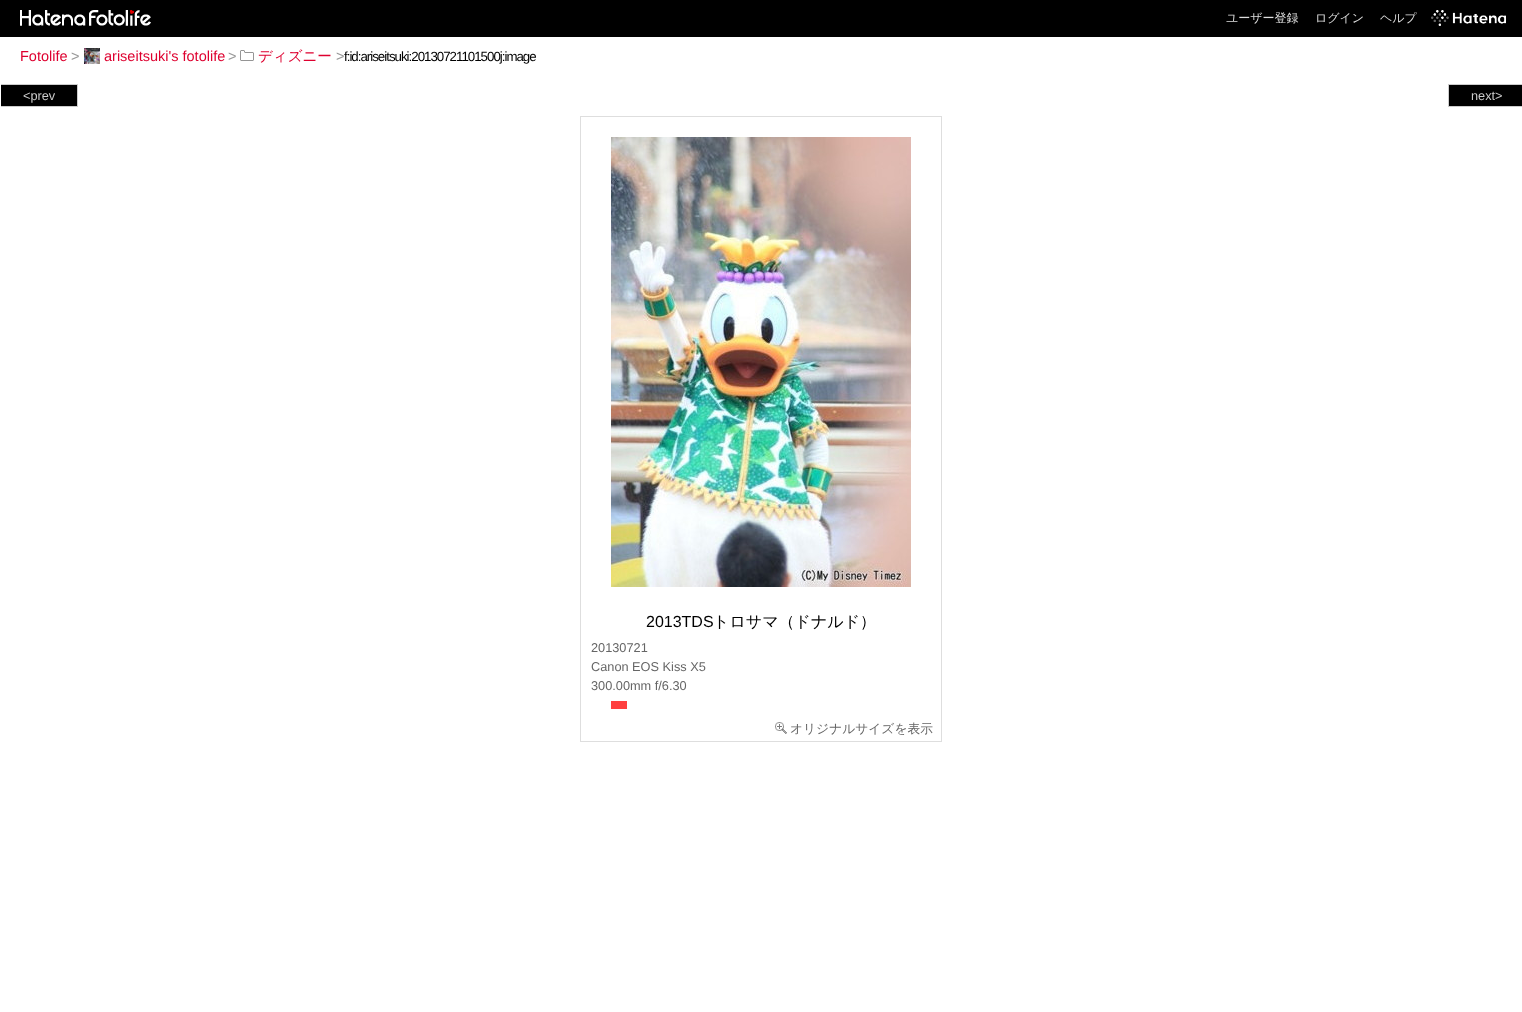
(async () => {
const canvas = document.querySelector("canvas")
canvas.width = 1522
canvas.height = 1012
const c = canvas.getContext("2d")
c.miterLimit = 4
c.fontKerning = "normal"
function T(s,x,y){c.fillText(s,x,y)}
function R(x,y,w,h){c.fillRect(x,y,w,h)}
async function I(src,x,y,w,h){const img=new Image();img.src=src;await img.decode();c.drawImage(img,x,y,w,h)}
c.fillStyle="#fff"
R(0,0,1522,1012)
c.fillStyle="#000"
R(0,0,1522,37)
await I("1.png",20,10,66,16)
await I("2.png",89,10,62,16)
c.font="500 12px WenQuanYi Zen Hei"
c.fillStyle="#ddd"
T("ユーザー登録",1226,22)
T("ログイン",1315,22)
T("ヘルプ",1380,22)
await I("3.png",1431,10,75,16)
c.font="14.5px Liberation Sans"
c.fillStyle="#de002f"
T("Fotolife",20,61)
c.fillStyle="#999"
T(">",71,61)
await I("4.png",84,48,16,16)
c.fillStyle="#de002f"
T("ariseitsuki's fotolife",104,61)
c.fillStyle="#999"
T(">",228,61)
await I("5.png",240,50,14,11)
c.font="500 14.5px WenQuanYi Zen Hei"
c.fillStyle="#de002f"
T("ディズニー",258,61)
c.font="14.5px Liberation Sans"
c.fillStyle="#999"
T(">",336,61)
c.letterSpacing="-1px"
c.font="13.3px Liberation Sans"
c.fillStyle="#000"
T("f:id:ariseitsuki:20130721101500j:image",344,61)
R(1,85,76,21)
c.fillStyle="#ccc"
R(1,84,77,1)
R(77,84,1,23)
R(1,106,77,1)
c.letterSpacing="0px"
c.font="12.75px Liberation Sans"
T("<prev",23,100)
c.fillStyle="#000"
R(1449,85,73,21)
c.fillStyle="#ccc"
R(1448,84,74,1)
R(1448,106,74,1)
R(1448,84,1,23)
T("next>",1471,100)
c.strokeStyle="#dedede"
c.strokeRect(580.5,116.5,361,625)
await I("6.png",611,137,300,450)
c.font="16px Liberation Sans"
c.fillStyle="#000"
T("2013TDS",646,627)
c.font="500 16px WenQuanYi Zen Hei"
T("トロサマ（ドナルド）",713,627)
c.font="12.75px Liberation Sans"
c.fillStyle="#666"
T("20130721",591,652)
T("Canon EOS Kiss X5",591,671)
T("300.00mm f/6.30",591,690)
c.fillStyle="#ff4040"
R(611,701,16,8)
await I("7.png",775,722,12,12)
c.font="500 12.75px WenQuanYi Zen Hei"
c.fillStyle="#666"
T("オリジナルサイズを表示",790,733)
})()
